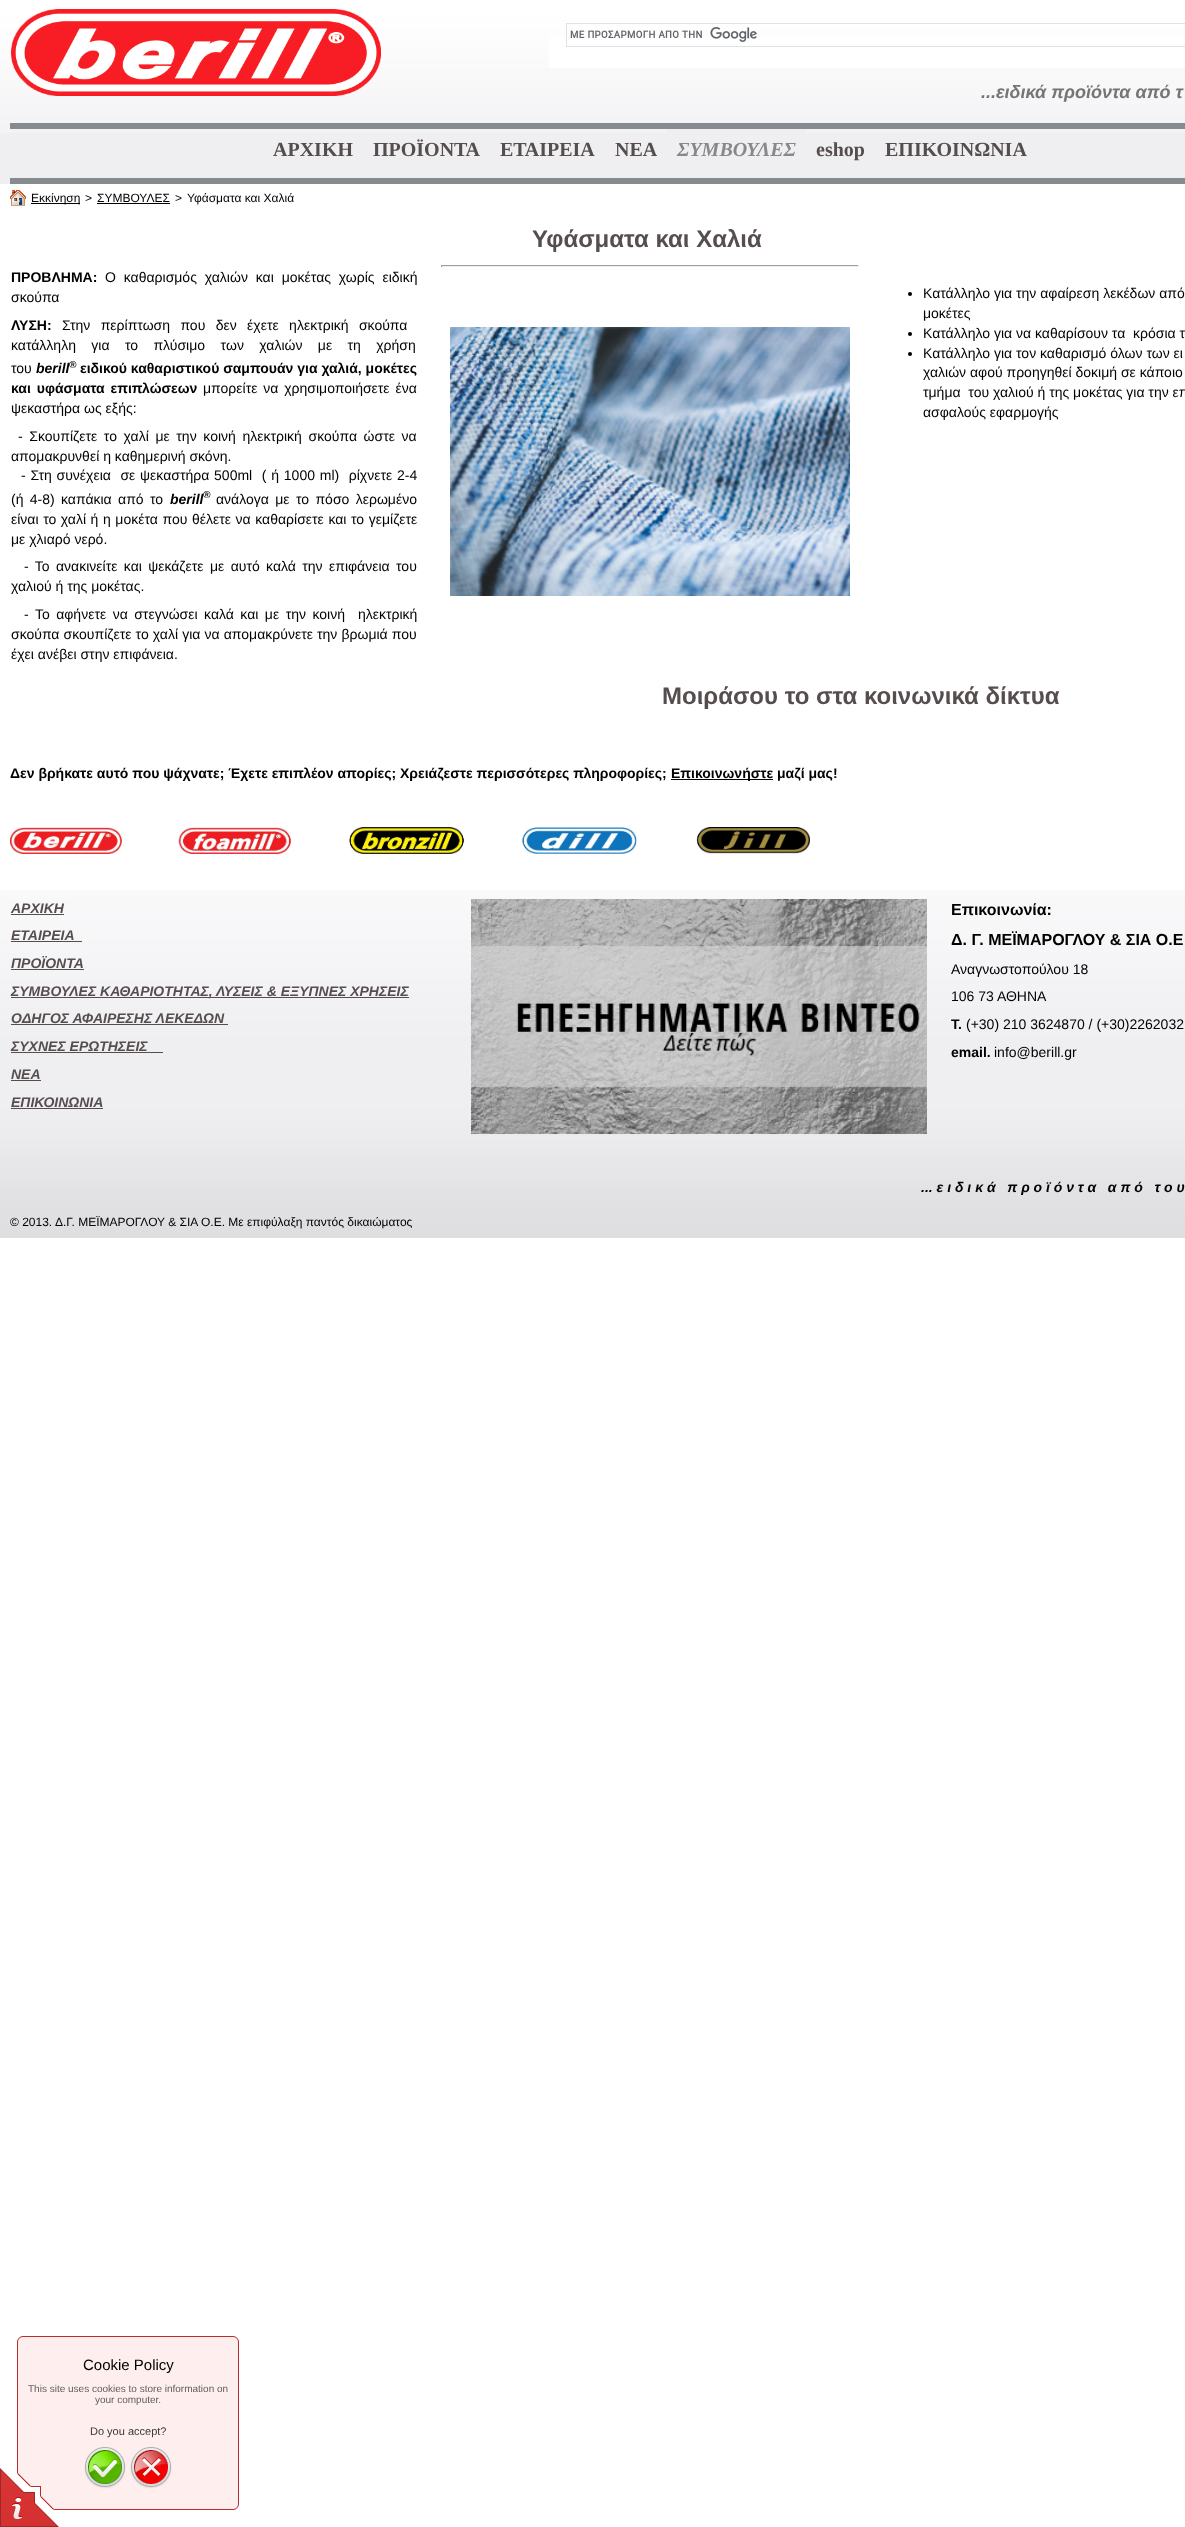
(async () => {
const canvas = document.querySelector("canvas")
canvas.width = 1185
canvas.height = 2527
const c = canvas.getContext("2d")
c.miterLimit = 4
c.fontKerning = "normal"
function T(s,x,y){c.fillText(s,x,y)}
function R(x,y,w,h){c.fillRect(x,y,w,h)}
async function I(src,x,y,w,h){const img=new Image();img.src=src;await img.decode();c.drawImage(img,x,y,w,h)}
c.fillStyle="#fff"
R(0,0,1185,2527)
c.fillStyle="#efeef1"
R(0,3,1185,181)
await I("1.png",0,0,1185,133)
await I("2.png",11,9,370,87)
c.fillStyle="#fff"
R(549,37,636,31)
c.strokeStyle="#dfe1e5"
c.strokeRect(566.5,23.5,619,23)
await I("3.png",570,27,187,15)
c.font="italic bold 18px Liberation Sans"
c.fillStyle="#757575"
T("...ειδικά προϊόντα από τ",981,98)
c.fillStyle="#868b8f"
R(10,123,1175,6)
c.font="bold 20px Liberation Serif"
c.fillStyle="#564e4e"
T("ΑΡΧΙΚΗ",273,156)
T("ΠΡΟΪΟΝΤΑ",373,156)
T("ΕΤΑΙΡΕΙΑ",500,156)
T("ΝΕΑ",615,156)
c.fillStyle="#efeef1"
R(667,129,139,4)
c.font="italic bold 20px Liberation Serif"
c.fillStyle="#87888c"
T("ΣΥΜΒΟΥΛΕΣ",677,156)
c.font="bold 20px Liberation Serif"
c.fillStyle="#564e4e"
T("eshop",816,156)
T("ΕΠΙΚΟΙΝΩΝΙΑ",885,156)
c.fillStyle="#868b8f"
R(10,178,1175,6)
await I("4.png",10,190,16,16)
c.fillStyle="#000"
R(31,203,49,1)
c.font="12px Liberation Sans"
T("Εκκίνηση",31,202)
T(">",85,202)
T("ΣΥΜΒΟΥΛΕΣ",97,202)
R(97,203,73,1)
T(">",175,202)
T("Υφάσματα και Χαλιά",187,202)
c.font="bold 24px Liberation Sans"
c.fillStyle="#564e4e"
T("Υφάσματα και Χαλιά",532,247)
c.fillStyle="#9f9f9f"
R(441,265,418,1)
c.fillStyle="#eee"
R(858,265,1,2)
R(441,266,418,1)
c.fillStyle="#9f9f9f"
R(441,265,1,2)
await I("5.png",450,327,400,269)
c.font="bold 14px Liberation Sans"
c.fillStyle="#000"
T("ΠΡΟΒΛΗΜΑ:",11,282)
c.wordSpacing="4px"
c.font="14px Liberation Sans"
T("Ο καθαρισμός χαλιών και μοκέτας χωρίς ειδική",105,282)
c.wordSpacing="0px"
T("σκούπα",11,302)
c.font="bold 14px Liberation Sans"
T("ΛΥΣΗ:",11,330)
c.wordSpacing="6.5px"
c.font="14px Liberation Sans"
T("Στην περίπτωση που δεν έχετε ηλεκτρική σκούπα",62,330)
c.wordSpacing="11.5px"
T("κατάλληλη για το πλύσιμο τ",11,350)
T("ων χαλιών με τη χρήση",226,350)
c.wordSpacing="0px"
T("του",11,373)
c.font="italic bold 14px Liberation Sans"
T("berill",36,373)
c.font="italic bold 10px Liberation Sans"
T("®",69,368)
c.font="bold 14px Liberation Sans"
T("ειδικού καθαριστικού σαμπουάν για χαλιά, μοκέτες",80,373)
c.wordSpacing="2px"
T("και υφάσματα επιπλώσεων",11,393)
c.font="14px Liberation Sans"
T("μπορείτε να χρησιμοποιήσετε ένα",203,393)
c.wordSpacing="0px"
T("ψεκαστήρα ως εξής:",11,413)
c.wordSpacing="2.75px"
T("- Σκουπίζετε το χαλί με την κοινή ηλεκτρική σκούπα ώστε να",18,441)
c.wordSpacing="0px"
T("απομακρυνθεί η καθημερινή σκόνη.",11,461)
c.wordSpacing="0.9px"
T("- Στη συνέχεια  σε ψεκαστήρα 500ml  ( ή 1000 ml)  ρίχνετε 2-4",21,480)
c.wordSpacing="2.5px"
T("(ή 4-8)",11,504)
T("καπάκια από το",61,504)
c.wordSpacing="0px"
c.font="italic bold 14px Liberation Sans"
T("berill",170,504)
c.font="italic bold 10px Liberation Sans"
T("®",203,498)
c.wordSpacing="2.5px"
c.font="14px Liberation Sans"
T("ανάλογα με το πόσο λερωμένο",216,504)
c.wordSpacing="0.7px"
T("είναι το χαλί ή η μοκέτα που θέλετε να καθαρίσετε και το γεμίζετε",11,524)
c.wordSpacing="0px"
T("με χλιαρό νερό.",11,544)
c.wordSpacing="2.5px"
T("- Το ανακινείτε και ψεκάζετε με αυτό καλά την επιφάνεια του",24,571)
c.wordSpacing="0px"
T("χαλιού ή της μοκέτας.",11,591)
c.wordSpacing="2.6px"
T("- Το αφήνετε να στεγνώσει καλά και με την κοινή  ηλεκτρική",24,619)
c.wordSpacing="0.25px"
T("σκούπα σκουπίζετε το χαλί για να απομακρύνετε την βρωμιά που",11,639)
c.wordSpacing="0px"
T("έχει ανέβει στην επιφάνεια.",11,659)
c.beginPath()
c.arc(910,294,2,0,7)
c.fill()
T("Κατάλληλο για την αφαίρεση λεκέδων από",923,298)
T("μοκέτες",923,318)
c.beginPath()
c.arc(910,334,2,0,7)
c.fill()
T("Κατάλληλο για να καθαρίσουν τα  κρόσια τ",923,338)
c.beginPath()
c.arc(910,354,2,0,7)
c.fill()
T("Κατάλληλο για τον καθαρισμό όλων των ει",923,358)
T("χαλιών αφού προηγηθεί δοκιμή σε κάποιο",923,377)
T("τμήμα  του χαλιού ή της μοκέτας για την επ",923,397)
T("ασφαλούς εφαρμογής",923,417)
c.font="bold 24px Liberation Sans"
c.fillStyle="#564e4e"
T("Μοιράσου το στα κοινωνικά δίκτυα",662,704)
c.font="bold 14px Liberation Sans"
c.fillStyle="#000"
T("Δεν βρήκατε αυτό που ψάχνατε; Έχετε επιπλέον απορίες; Χρειάζεστε περισσότερες πληροφορίες;",10,778)
R(671,779,102,1)
T("Επικοινωνήστε μαζί μας!",671,778)
await I("6.png",10,827,800,27)
c.fillStyle="#efeef1"
R(0,890,1185,348)
await I("7.png",0,890,1185,348)
c.font="italic bold 14px Liberation Sans"
c.fillStyle="#564e4e"
T("ΑΡΧΙΚΗ",11,913)
R(11,914,53,1)
T("ΕΤΑΙΡΕΙΑ",11,940)
R(11,941,71,1)
T("ΠΡΟΪΟΝΤΑ",11,968)
R(11,969,73,1)
R(11,997,398,1)
T("ΣΥΜΒΟΥΛΕΣ ΚΑΘΑΡΙΟΤΗΤΑΣ, ΛΥΣΕΙΣ & ΕΞΥΠΝΕΣ ΧΡΗΣΕΙΣ",11,996)
T("ΟΔΗΓΟΣ ΑΦΑΙΡΕΣΗΣ ΛΕΚΕΔΩΝ",11,1023)
R(11,1024,217,1)
T("ΣΥΧΝΕΣ ΕΡΩΤΗΣΕΙΣ",11,1051)
R(11,1052,152,1)
T("ΝΕΑ",11,1079)
R(11,1080,30,1)
T("ΕΠΙΚΟΙΝΩΝΙΑ",11,1107)
R(11,1108,92,1)
await I("8.png",471,899,456,235)
c.font="bold 16px Liberation Sans"
c.fillStyle="#000"
T("Επικοινωνία:",951,915)
T("Δ. Γ. ΜΕΪΜΑΡΟΓΛΟΥ & ΣΙΑ Ο.Ε",951,945)
c.font="14px Liberation Sans"
T("Αναγνωστοπούλου 18",951,974)
T("106 73 ΑΘΗΝΑ",951,1001)
c.font="bold 14px Liberation Sans"
T("Τ.",951,1029)
c.font="14px Liberation Sans"
T("(+30) 210 3624870 / (+30)2262032",966,1029)
c.font="bold 14px Liberation Sans"
T("email.",951,1057)
c.font="14px Liberation Sans"
T("info@berill.gr",994,1057)
c.font="italic bold 14px Liberation Sans"
T("... ε ι δ ι κ ά   π ρ ο ϊ ό ν τ α   α π ό   τ ο υ",921,1192)
c.font="12px Liberation Sans"
T("© 2013. Δ.Γ. ΜΕΪΜΑΡΟΓΛΟΥ & ΣΙΑ Ο.Ε. Με επιφύλαξη παντός δικαιώματος",10,1226)
await I("12.png",0,2468,59,59)
await I("9.png",17,2336,222,174)
c.font="15px Liberation Sans"
T("Cookie Policy",83,2370)
c.font="10px Liberation Sans"
c.fillStyle="#5e5e5e"
T("This site uses cookies to store information on",28,2392)
T("your computer.",95,2403)
c.font="11px Liberation Sans"
c.fillStyle="#383838"
T("Do you accept?",90,2435)
await I("10.png",84,2447,42,42)
await I("11.png",130,2447,42,42)
})()
